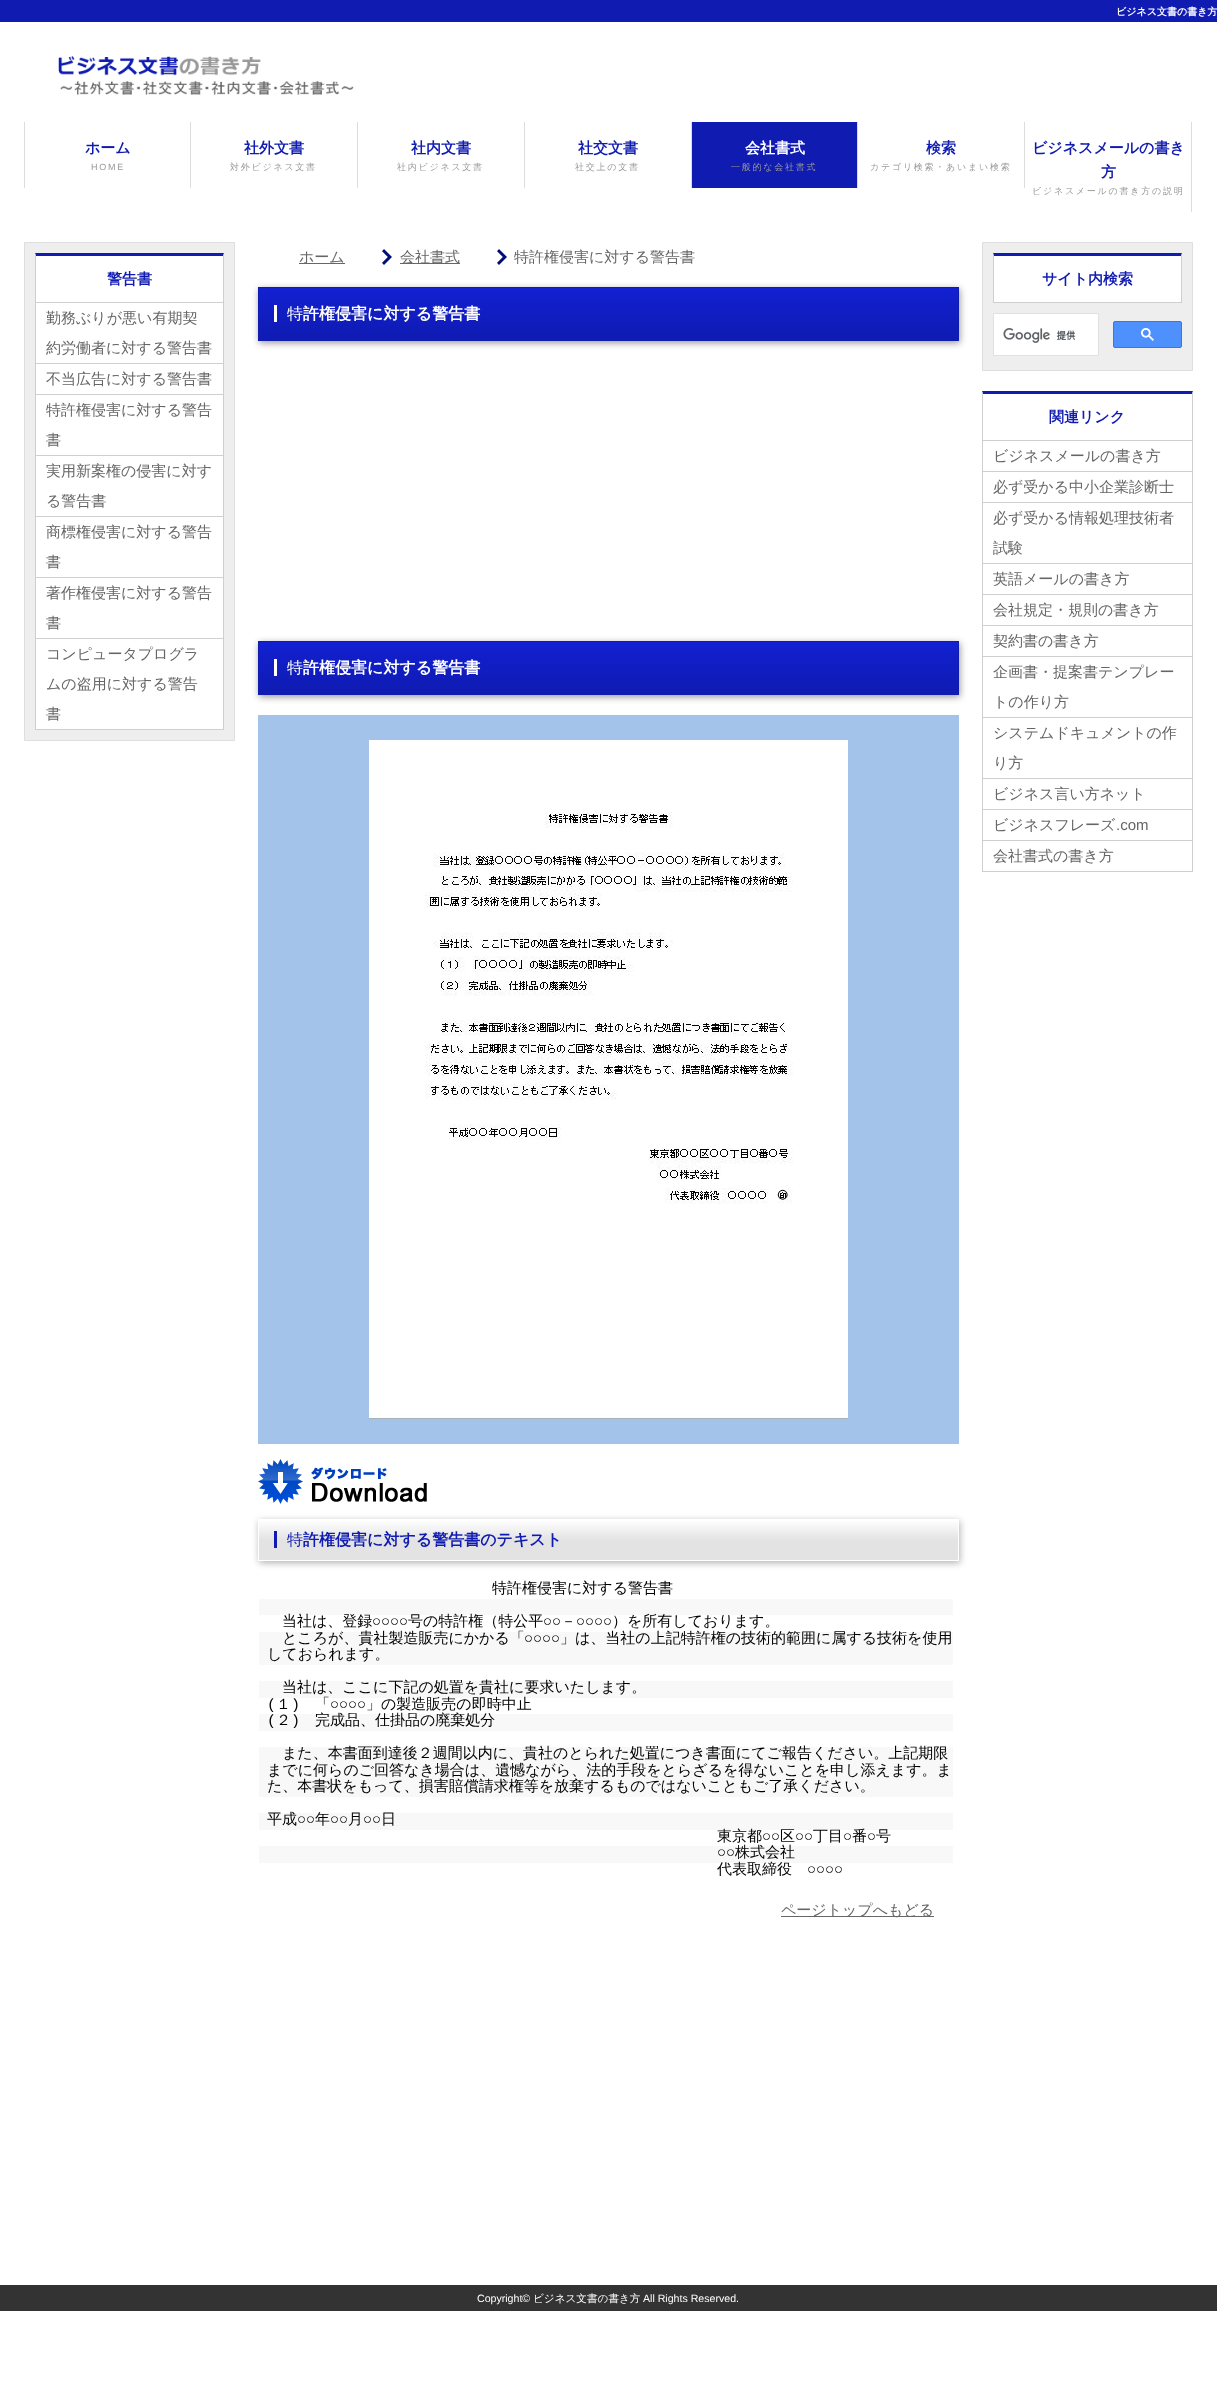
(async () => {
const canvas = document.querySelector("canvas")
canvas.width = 1217
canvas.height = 2407
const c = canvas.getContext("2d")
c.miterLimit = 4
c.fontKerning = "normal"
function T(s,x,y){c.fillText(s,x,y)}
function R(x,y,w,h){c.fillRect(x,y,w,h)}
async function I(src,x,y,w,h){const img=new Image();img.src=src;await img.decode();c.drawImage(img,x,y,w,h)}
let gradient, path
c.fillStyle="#fff"
R(0,0,1217,2407)
c.fillStyle="#0f1bb1"
R(0,0,1217,22)
c.font="bold 10px WenQuanYi Zen Hei"
c.fillStyle="#fff"
T("ビジネス文書の書き方",1116,15)
await I("1.png",58,56,296,39)
c.fillStyle="#dcdcdc"
R(190,122,1,66)
R(24,122,1,66)
c.font="bold 15px WenQuanYi Zen Hei"
c.fillStyle="#0f1bb1"
T("ホーム",85,153)
c.letterSpacing="1.75px"
c.font="9px Liberation Sans"
c.fillStyle="#999"
T("HOME",91,170)
c.fillStyle="#dcdcdc"
R(357,122,1,66)
c.letterSpacing="0px"
c.font="bold 15px WenQuanYi Zen Hei"
c.fillStyle="#0f1bb1"
T("社外文書",244,153)
c.letterSpacing="1.75px"
c.font="500 9px WenQuanYi Zen Hei"
c.fillStyle="#999"
T("対外ビジネス文書",230,170)
c.fillStyle="#dcdcdc"
R(524,122,1,66)
c.letterSpacing="0px"
c.font="bold 15px WenQuanYi Zen Hei"
c.fillStyle="#0f1bb1"
T("社内文書",411,153)
c.letterSpacing="1.75px"
c.font="500 9px WenQuanYi Zen Hei"
c.fillStyle="#999"
T("社内ビジネス文書",397,170)
c.fillStyle="#dcdcdc"
R(691,122,1,66)
c.letterSpacing="0px"
c.font="bold 15px WenQuanYi Zen Hei"
c.fillStyle="#0f1bb1"
T("社交文書",578,153)
c.letterSpacing="1.75px"
c.font="500 9px WenQuanYi Zen Hei"
c.fillStyle="#999"
T("社交上の文書",575,170)
c.fillStyle="#0f1bb1"
R(692,122,165,66)
c.fillStyle="#dcdcdc"
R(857,122,1,66)
c.letterSpacing="0px"
c.font="bold 15px WenQuanYi Zen Hei"
c.fillStyle="#fff"
T("会社書式",745,153)
c.letterSpacing="1.75px"
c.font="500 9px WenQuanYi Zen Hei"
c.fillStyle="#999"
T("一般的な会社書式",731,170)
c.fillStyle="#dcdcdc"
R(1024,122,1,66)
c.letterSpacing="0px"
c.font="bold 15px WenQuanYi Zen Hei"
c.fillStyle="#0f1bb1"
T("検索",926,153)
c.letterSpacing="1.75px"
c.font="500 9px WenQuanYi Zen Hei"
c.fillStyle="#999"
T("カテゴリ検索・あいまい検索",870,170)
c.fillStyle="#dcdcdc"
R(1191,122,1,90)
c.letterSpacing="0px"
c.font="bold 15px WenQuanYi Zen Hei"
c.fillStyle="#0f1bb1"
T("ビジネスメールの書き",1032,153)
T("方",1101,177)
c.letterSpacing="1.75px"
c.font="500 9px WenQuanYi Zen Hei"
c.fillStyle="#999"
T("ビジネスメールの書き方の説明",1032,194)
c.fillStyle="#eee"
c.beginPath()
c.rect(24.5,242.5,210,498)
c.fill()
c.strokeStyle="#dedede"
c.stroke()
c.fillStyle="#fff"
R(36,256,187,46)
c.fillStyle="#0f1bb1"
path = new Path2D("M35 253h189l-1 3h-187z")
c.fill(path)
c.fillStyle="#cfcfcf"
path = new Path2D("M224 253v50l-1-1v-46z")
c.fill(path)
R(35,302,189,1)
path = new Path2D("M35 303v-50l1 3v46z")
c.fill(path)
c.letterSpacing="0px"
c.font="bold 15px WenQuanYi Zen Hei"
c.fillStyle="#0f1bb1"
T("警告書",107,284)
c.fillStyle="#cfcfcf"
R(223,303,1,427)
R(35,303,1,427)
c.fillStyle="#fff"
R(36,303,187,60)
c.fillStyle="#cfcfcf"
R(36,363,187,1)
c.font="500 15px WenQuanYi Zen Hei"
c.fillStyle="#666"
T("勤務ぶりが悪い有期契",46,323)
T("約労働者に対する警告書",46,353)
c.fillStyle="#fff"
R(36,364,187,30)
c.fillStyle="#cfcfcf"
R(36,394,187,1)
c.fillStyle="#666"
T("不当広告に対する警告書",46,384)
c.fillStyle="#fff"
R(36,395,187,60)
c.fillStyle="#cfcfcf"
R(36,455,187,1)
c.fillStyle="#666"
T("特許権侵害に対する警告",46,415)
T("書",46,445)
c.fillStyle="#fff"
R(36,456,187,60)
c.fillStyle="#cfcfcf"
R(36,516,187,1)
c.fillStyle="#666"
T("実用新案権の侵害に対す",46,476)
T("る警告書",46,506)
c.fillStyle="#fff"
R(36,517,187,60)
c.fillStyle="#cfcfcf"
R(36,577,187,1)
c.fillStyle="#666"
T("商標権侵害に対する警告",46,537)
T("書",46,567)
c.fillStyle="#fff"
R(36,578,187,60)
c.fillStyle="#cfcfcf"
R(36,638,187,1)
c.fillStyle="#666"
T("著作権侵害に対する警告",46,598)
T("書",46,628)
c.fillStyle="#fff"
R(36,639,187,90)
c.fillStyle="#cfcfcf"
R(36,729,187,1)
c.fillStyle="#666"
T("コンピュータプログラ",46,659)
T("ムの盗用に対する警告",46,689)
T("書",46,719)
R(299,263,46,1)
T("ホーム",299,262)
await I("2.png",382,249,10,16)
R(400,263,60,1)
T("会社書式",400,262)
await I("2.png",497,249,10,16)
T("特許権侵害に対する警告書",514,262)
c.fillStyle="#00000066"
c.filter="blur(3.5px)"
c.beginPath()
c.rect(259,289,701,54)
c.fill()
c.filter="none"
gradient = c.createLinearGradient(609,288,609,340)
gradient.addColorStop(0,"#1220d2")
gradient.addColorStop(1,"#0f1bb1")
c.fillStyle = gradient
R(259,288,699,52)
c.strokeStyle="#0f1bb1"
c.strokeRect(258.5,287.5,700,53)
c.font="100 16px Noto Sans"
c.fillStyle="#fff"
T("特",287,319)
R(274,305,3,17)
c.font="bold 16px WenQuanYi Zen Hei"
T("許権侵害に対する警告書",303,319)
c.fillStyle="#00000066"
c.filter="blur(3.5px)"
c.beginPath()
c.rect(259,643,701,54)
c.fill()
c.filter="none"
gradient = c.createLinearGradient(609,642,609,694)
gradient.addColorStop(0,"#1220d2")
gradient.addColorStop(1,"#0f1bb1")
c.fillStyle = gradient
R(259,642,699,52)
c.strokeRect(258.5,641.5,700,53)
c.font="100 16px Noto Sans"
c.fillStyle="#fff"
T("特",287,673)
R(274,659,3,17)
c.font="bold 16px WenQuanYi Zen Hei"
T("許権侵害に対する警告書",303,673)
c.fillStyle="#a3c3ea"
R(258,715,701,729)
await I("3.png",369,740,479,679)
await I("4.png",258,1459,169,45)
c.fillStyle="#0000004d"
c.filter="blur(3.5px)"
c.beginPath()
c.rect(259,1521,701,42)
c.fill()
c.filter="none"
gradient = c.createLinearGradient(609,1520,609,1560)
gradient.addColorStop(0,"#fff")
gradient.addColorStop(.5,"#e3e3e3")
c.fillStyle = gradient
R(259,1520,699,40)
c.strokeStyle="#fff"
c.strokeRect(258.5,1519.5,700,41)
c.font="100 16px Noto Sans"
c.fillStyle="#0f1bb1"
T("特",287,1545)
R(274,1531,3,17)
c.font="bold 16px WenQuanYi Zen Hei"
T("許権侵害に対する警告書のテキスト",303,1545)
c.font="500 15px WenQuanYi Zen Hei"
c.fillStyle="#000"
T("特許権侵害に対する警告書",492,1593)
c.fillStyle="#f8f8f8"
R(259,1599,694,16)
c.fillStyle="#000"
T("当社は、登録",282,1626)
c.font="15px Liberation Mono"
T("○○○○",372,1626)
c.font="500 15px WenQuanYi Zen Hei"
T("号の特許権（特公平",408,1626)
c.font="15px Liberation Mono"
T("○○",543,1626)
c.font="500 15px WenQuanYi Zen Hei"
T("－",561,1626)
c.font="15px Liberation Mono"
T("○○○○",576,1626)
c.font="500 15px WenQuanYi Zen Hei"
T("）を所有しております。",612,1626)
c.fillStyle="#f8f8f8"
R(259,1632,694,33)
c.fillStyle="#000"
T("ところが、貴社製造販売にかかる「",282,1643)
c.font="15px Liberation Mono"
T("○○○○",524,1643)
c.font="500 15px WenQuanYi Zen Hei"
T("」は、当社の上記特許権の技術的範囲に属する技術を使用",560,1643)
T("しておられます。",267,1659)
c.fillStyle="#f8f8f8"
R(259,1681,694,17)
c.fillStyle="#000"
T("当社は、ここに下記の処置を貴社に要求いたします。",282,1692)
c.font="15px Liberation Mono"
T("(",267,1709)
c.font="500 15px WenQuanYi Zen Hei"
T("１",276,1709)
c.font="15px Liberation Mono"
T(")",291,1709)
c.font="500 15px WenQuanYi Zen Hei"
T("「",315,1709)
c.font="15px Liberation Mono"
T("○○○○",330,1709)
c.font="500 15px WenQuanYi Zen Hei"
T("」の製造販売の即時中止",366,1709)
c.fillStyle="#f8f8f8"
R(259,1714,694,17)
c.font="15px Liberation Mono"
c.fillStyle="#000"
T("(",267,1725)
c.font="500 15px WenQuanYi Zen Hei"
T("２",276,1725)
c.font="15px Liberation Mono"
T(")",291,1725)
c.font="500 15px WenQuanYi Zen Hei"
T("完成品、仕掛品の廃棄処分",315,1725)
c.fillStyle="#f8f8f8"
R(259,1747,694,50)
c.fillStyle="#000"
T("また、本書面到達後２週間以内に、貴社のとられた処置につき書面にてご報告ください。上記期限",282,1758)
T("までに何らのご回答なき場合は、遺憾ながら、法的手段をとらざるを得ないことを申し添えます。ま",267,1775)
T("た、本書状をもって、損害賠償請求権等を放棄するものではないこともご了承ください。",267,1791)
c.fillStyle="#f8f8f8"
R(259,1813,694,17)
c.fillStyle="#000"
T("平成",267,1824)
c.font="15px Liberation Mono"
T("○○",297,1824)
c.font="500 15px WenQuanYi Zen Hei"
T("年",315,1824)
c.font="15px Liberation Mono"
T("○○",330,1824)
c.font="500 15px WenQuanYi Zen Hei"
T("月",348,1824)
c.font="15px Liberation Mono"
T("○○",363,1824)
c.font="500 15px WenQuanYi Zen Hei"
T("日",381,1824)
T("東京都",717,1841)
c.font="15px Liberation Mono"
T("○○",762,1841)
c.font="500 15px WenQuanYi Zen Hei"
T("区",780,1841)
c.font="15px Liberation Mono"
T("○○",795,1841)
c.font="500 15px WenQuanYi Zen Hei"
T("丁目",813,1841)
c.font="15px Liberation Mono"
T("○",843,1841)
c.font="500 15px WenQuanYi Zen Hei"
T("番",852,1841)
c.font="15px Liberation Mono"
T("○",867,1841)
c.font="500 15px WenQuanYi Zen Hei"
T("号",876,1841)
c.fillStyle="#f8f8f8"
R(259,1846,694,17)
c.font="15px Liberation Mono"
c.fillStyle="#000"
T("○○",717,1857)
c.font="500 15px WenQuanYi Zen Hei"
T("株式会社",735,1857)
T("代表取締役",717,1874)
c.font="15px Liberation Mono"
T("○○○○",807,1874)
c.fillStyle="#666"
R(781,1916,153,1)
c.font="500 15px WenQuanYi Zen Hei"
T("ページトップへもどる",781,1915)
c.fillStyle="#eee"
c.beginPath()
c.rect(982.5,242.5,210,128)
c.fill()
c.strokeStyle="#dedede"
c.stroke()
c.fillStyle="#fff"
R(994,256,187,46)
c.fillStyle="#0f1bb1"
path = new Path2D("M993 253h189l-1 3h-187z")
c.fill(path)
c.fillStyle="#cfcfcf"
path = new Path2D("M1182 253v50l-1-1v-46z")
c.fill(path)
R(993,302,189,1)
path = new Path2D("M993 303v-50l1 3v46z")
c.fill(path)
c.font="bold 15px WenQuanYi Zen Hei"
c.fillStyle="#0f1bb1"
T("サイト内検索",1042,284)
c.fillStyle="#fff"
c.beginPath()
c.rect(993.5,313.5,105,42)
c.fill()
c.strokeStyle="#dfe1e5"
c.stroke()
await I("5.png",1003,328,73,15)
c.fillStyle="#4d90fe"
c.beginPath()
c.roundRect(1113.5,321.5,68,26,1.5)
c.fill()
c.strokeStyle="#3079ed"
c.stroke()
await I("6.png",1141,328,13,13)
c.fillStyle="#0f1bb1"
path = new Path2D("M982 391h211l-1 3h-209z")
c.fill(path)
c.fillStyle="#cfcfcf"
path = new Path2D("M1193 391v50l-1-1v-46z")
c.fill(path)
R(982,440,211,1)
path = new Path2D("M982 441v-50l1 3v46z")
c.fill(path)
c.fillStyle="#0f1bb1"
T("関連リンク",1049,422)
c.fillStyle="#cfcfcf"
R(1192,441,1,431)
R(982,441,1,431)
R(983,471,209,1)
c.font="500 15px WenQuanYi Zen Hei"
c.fillStyle="#666"
T("ビジネスメールの書き方",993,461)
c.fillStyle="#cfcfcf"
R(983,502,209,1)
c.fillStyle="#666"
T("必ず受かる中小企業診断士",993,492)
c.fillStyle="#cfcfcf"
R(983,563,209,1)
c.fillStyle="#666"
T("必ず受かる情報処理技術者",993,523)
T("試験",993,553)
c.fillStyle="#cfcfcf"
R(983,594,209,1)
c.fillStyle="#666"
T("英語メールの書き方",993,584)
c.fillStyle="#cfcfcf"
R(983,625,209,1)
c.fillStyle="#666"
T("会社規定・規則の書き方",993,615)
c.fillStyle="#cfcfcf"
R(983,656,209,1)
c.fillStyle="#666"
T("契約書の書き方",993,646)
c.fillStyle="#cfcfcf"
R(983,717,209,1)
c.fillStyle="#666"
T("企画書・提案書テンプレー",993,677)
T("トの作り方",993,707)
c.fillStyle="#cfcfcf"
R(983,778,209,1)
c.fillStyle="#666"
T("システムドキュメントの作",993,738)
T("り方",993,768)
c.fillStyle="#cfcfcf"
R(983,809,209,1)
c.fillStyle="#666"
T("ビジネス言い方ネット",993,799)
c.fillStyle="#cfcfcf"
R(983,840,209,1)
c.fillStyle="#666"
T("ビジネスフレーズ",993,830)
c.font="15px Liberation Sans"
T(".com",1116,830)
c.fillStyle="#cfcfcf"
R(983,871,209,1)
c.font="500 15px WenQuanYi Zen Hei"
c.fillStyle="#666"
T("会社書式の書き方",993,861)
c.fillStyle="#333"
R(0,2285,1217,26)
c.font="10.6px Liberation Sans"
c.fillStyle="#fff"
T("Copyright©",477,2302)
c.font="500 10.6px WenQuanYi Zen Hei"
T("ビジネス文書の書き方",533,2302)
c.font="10.6px Liberation Sans"
T("All Rights Reserved.",643,2302)
})()
